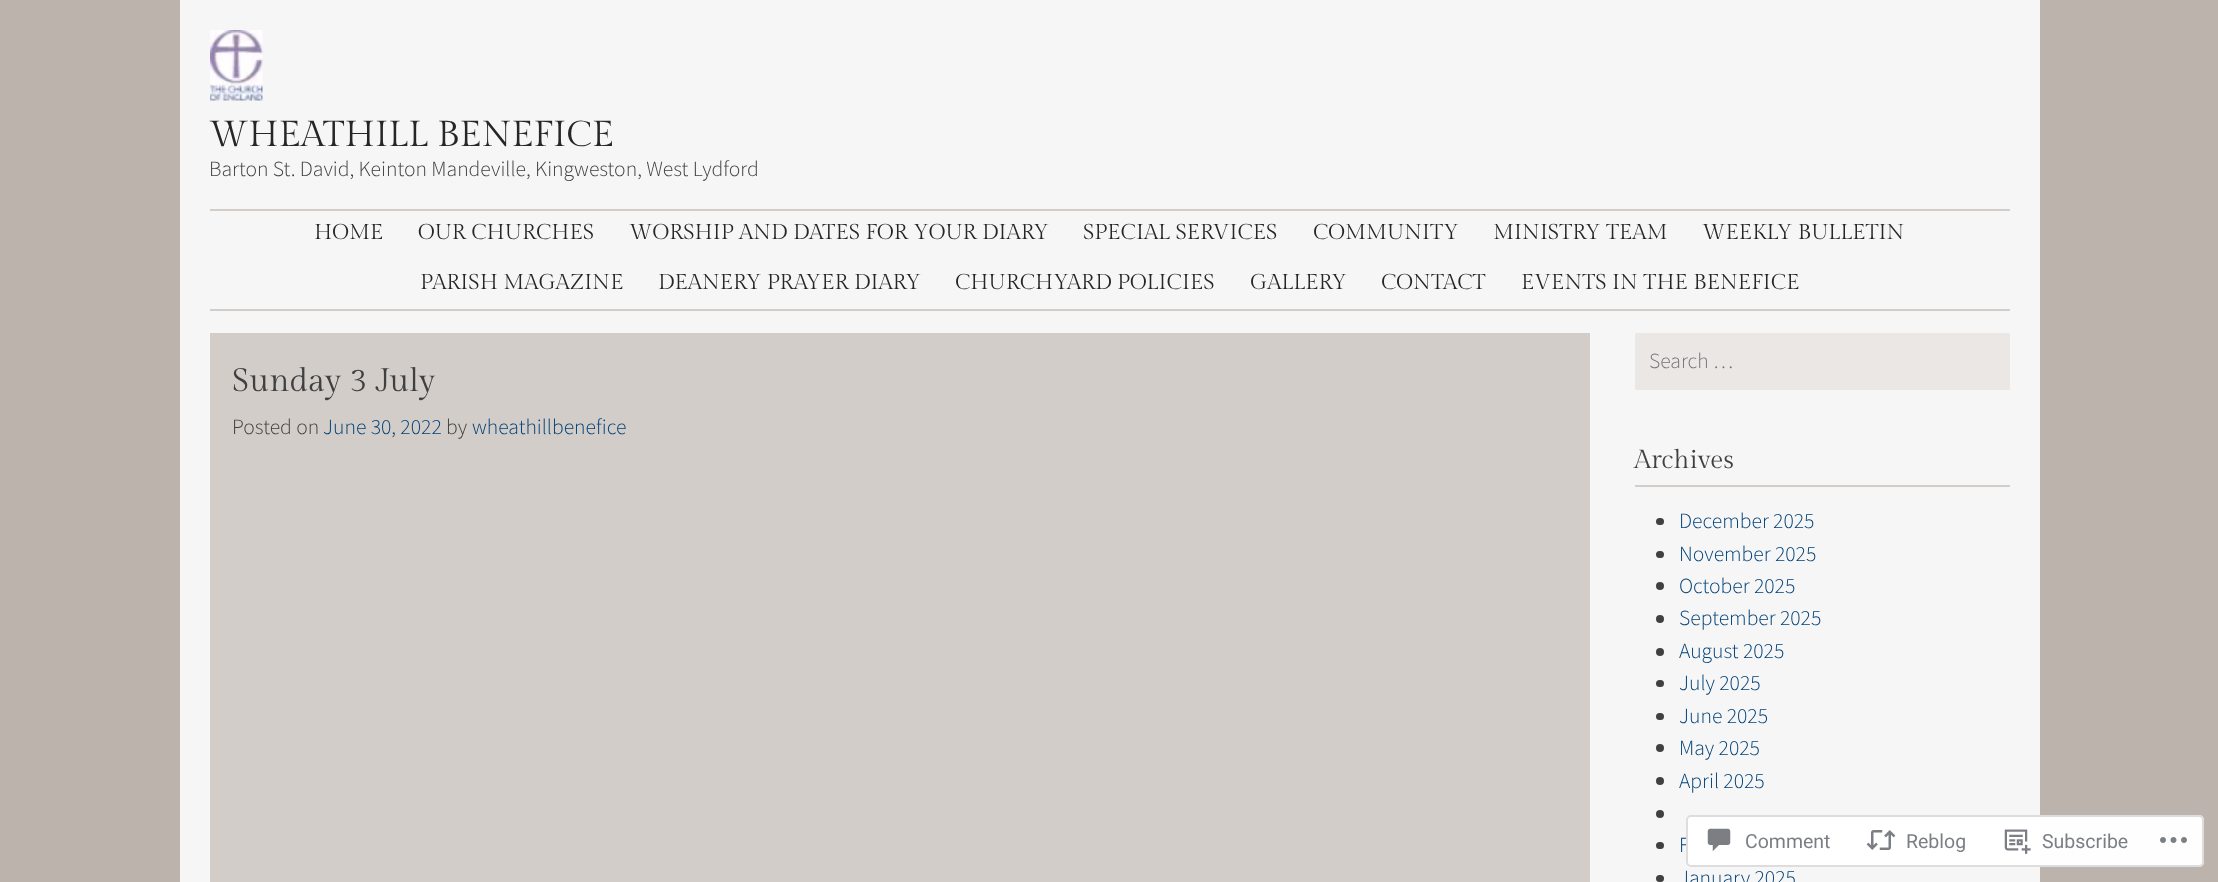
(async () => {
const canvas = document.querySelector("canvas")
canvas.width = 2218
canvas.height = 882
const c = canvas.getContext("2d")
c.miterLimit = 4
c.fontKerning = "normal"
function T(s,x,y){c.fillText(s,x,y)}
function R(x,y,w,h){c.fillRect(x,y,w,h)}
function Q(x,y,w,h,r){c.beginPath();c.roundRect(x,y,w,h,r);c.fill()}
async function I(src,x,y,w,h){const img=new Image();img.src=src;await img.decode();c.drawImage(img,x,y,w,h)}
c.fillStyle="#bcb3ac"
R(0,0,2218,882)
c.fillStyle="#f6f6f6"
R(180,0,1860,882)
await I("1.png",210,30,53,71)
c.font="36px Gilda Display"
c.fillStyle="#262626"
T("WHEATHILL BENEFICE",209,146)
c.font="300 21.6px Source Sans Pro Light"
c.fillStyle="#404040"
T("Barton St. David, Keinton Mandeville, Kingweston, West Lydford",209,176)
c.fillStyle="#d3cdc9"
R(210,209,1800,2)
R(210,309,1800,2)
c.font="21.6px Gilda Display"
c.fillStyle="#262626"
T("HOME",314,239)
T("OUR CHURCHES",418,239)
T("WORSHIP AND DATES FOR YOUR DIARY",629,239)
T("SPECIAL SERVICES",1083,239)
T("COMMUNITY",1313,239)
T("MINISTRY TEAM",1493,239)
T("WEEKLY BULLETIN",1702,239)
T("PARISH MAGAZINE",420,289)
T("DEANERY PRAYER DIARY",658,289)
T("CHURCHYARD POLICIES",955,289)
T("GALLERY",1250,289)
T("CONTACT",1381,289)
T("EVENTS IN THE BENEFICE",1521,289)
c.fillStyle="#d3cdc9"
R(210,333,1380,549)
c.font="32.5px Gilda Display"
c.fillStyle="#404040"
T("Sunday 3 July",232,391)
c.font="300 21.6px Source Sans Pro Light"
T("Posted on",232,434)
c.fillStyle="#004178"
T("June 30, 2022",323,434)
c.fillStyle="#404040"
T("by",446,434)
c.fillStyle="#004178"
T("wheathillbenefice",472,434)
c.fillStyle="#eae7e5"
Q(1635,333,375,57,1.5)
c.fillStyle="#757575"
T("Search …",1649,368)
c.fillStyle="#d3cdc9"
R(1635,485,375,2)
c.font="26px Gilda Display"
c.fillStyle="#404040"
T("Archives",1634,468)
Q(1656,518,8,7,3.5)
c.font="300 21.6px Source Sans Pro Light"
c.fillStyle="#004178"
T("December 2025",1679,528)
c.fillStyle="#404040"
Q(1656,551,8,7,3.5)
c.fillStyle="#004178"
T("November 2025",1679,561)
c.fillStyle="#404040"
c.beginPath()
c.arc(1660,586,4,0,7)
c.fill()
c.fillStyle="#004178"
T("October 2025",1679,593)
c.fillStyle="#404040"
c.beginPath()
c.arc(1660,619,4,0,7)
c.fill()
c.fillStyle="#004178"
T("September 2025",1679,625)
c.fillStyle="#404040"
c.beginPath()
c.arc(1660,652,4,0,7)
c.fill()
c.fillStyle="#004178"
T("August 2025",1679,658)
c.fillStyle="#404040"
Q(1656,680,8,7,3.5)
c.fillStyle="#004178"
T("July 2025",1679,690)
c.fillStyle="#404040"
Q(1656,713,8,7,3.5)
c.fillStyle="#004178"
T("June 2025",1679,723)
c.fillStyle="#404040"
c.beginPath()
c.arc(1660,748,4,0,7)
c.fill()
c.fillStyle="#004178"
T("May 2025",1679,755)
c.fillStyle="#404040"
c.beginPath()
c.arc(1660,781,4,0,7)
c.fill()
c.fillStyle="#004178"
T("April 2025",1679,788)
c.fillStyle="#404040"
c.beginPath()
c.arc(1660,814,4,0,7)
c.fill()
Q(1656,842,8,7,3.5)
c.fillStyle="#004178"
T("F",1679,852)
c.fillStyle="#404040"
Q(1656,875,8,7,3.5)
c.fillStyle="#004178"
T("January 2025",1679,885)
c.fillStyle="#fffffffa"
Q(1686,815,518,52,5)
c.beginPath()
c.roundRect(1687,816,516,50,4)
c.strokeStyle="#dcdcdefa"
c.lineWidth=2
c.stroke()
await I("2.png",1707,828,24,24)
c.font="19.5px Roboto"
c.fillStyle="#7b7f84"
T("Comment",1745,848)
await I("3.png",1866,830,30,20)
T("Reblog",1906,848)
await I("4.png",2004,829,27,25)
T("Subscribe",2042,848)
await I("5.png",2160,837,27,6)
})()
